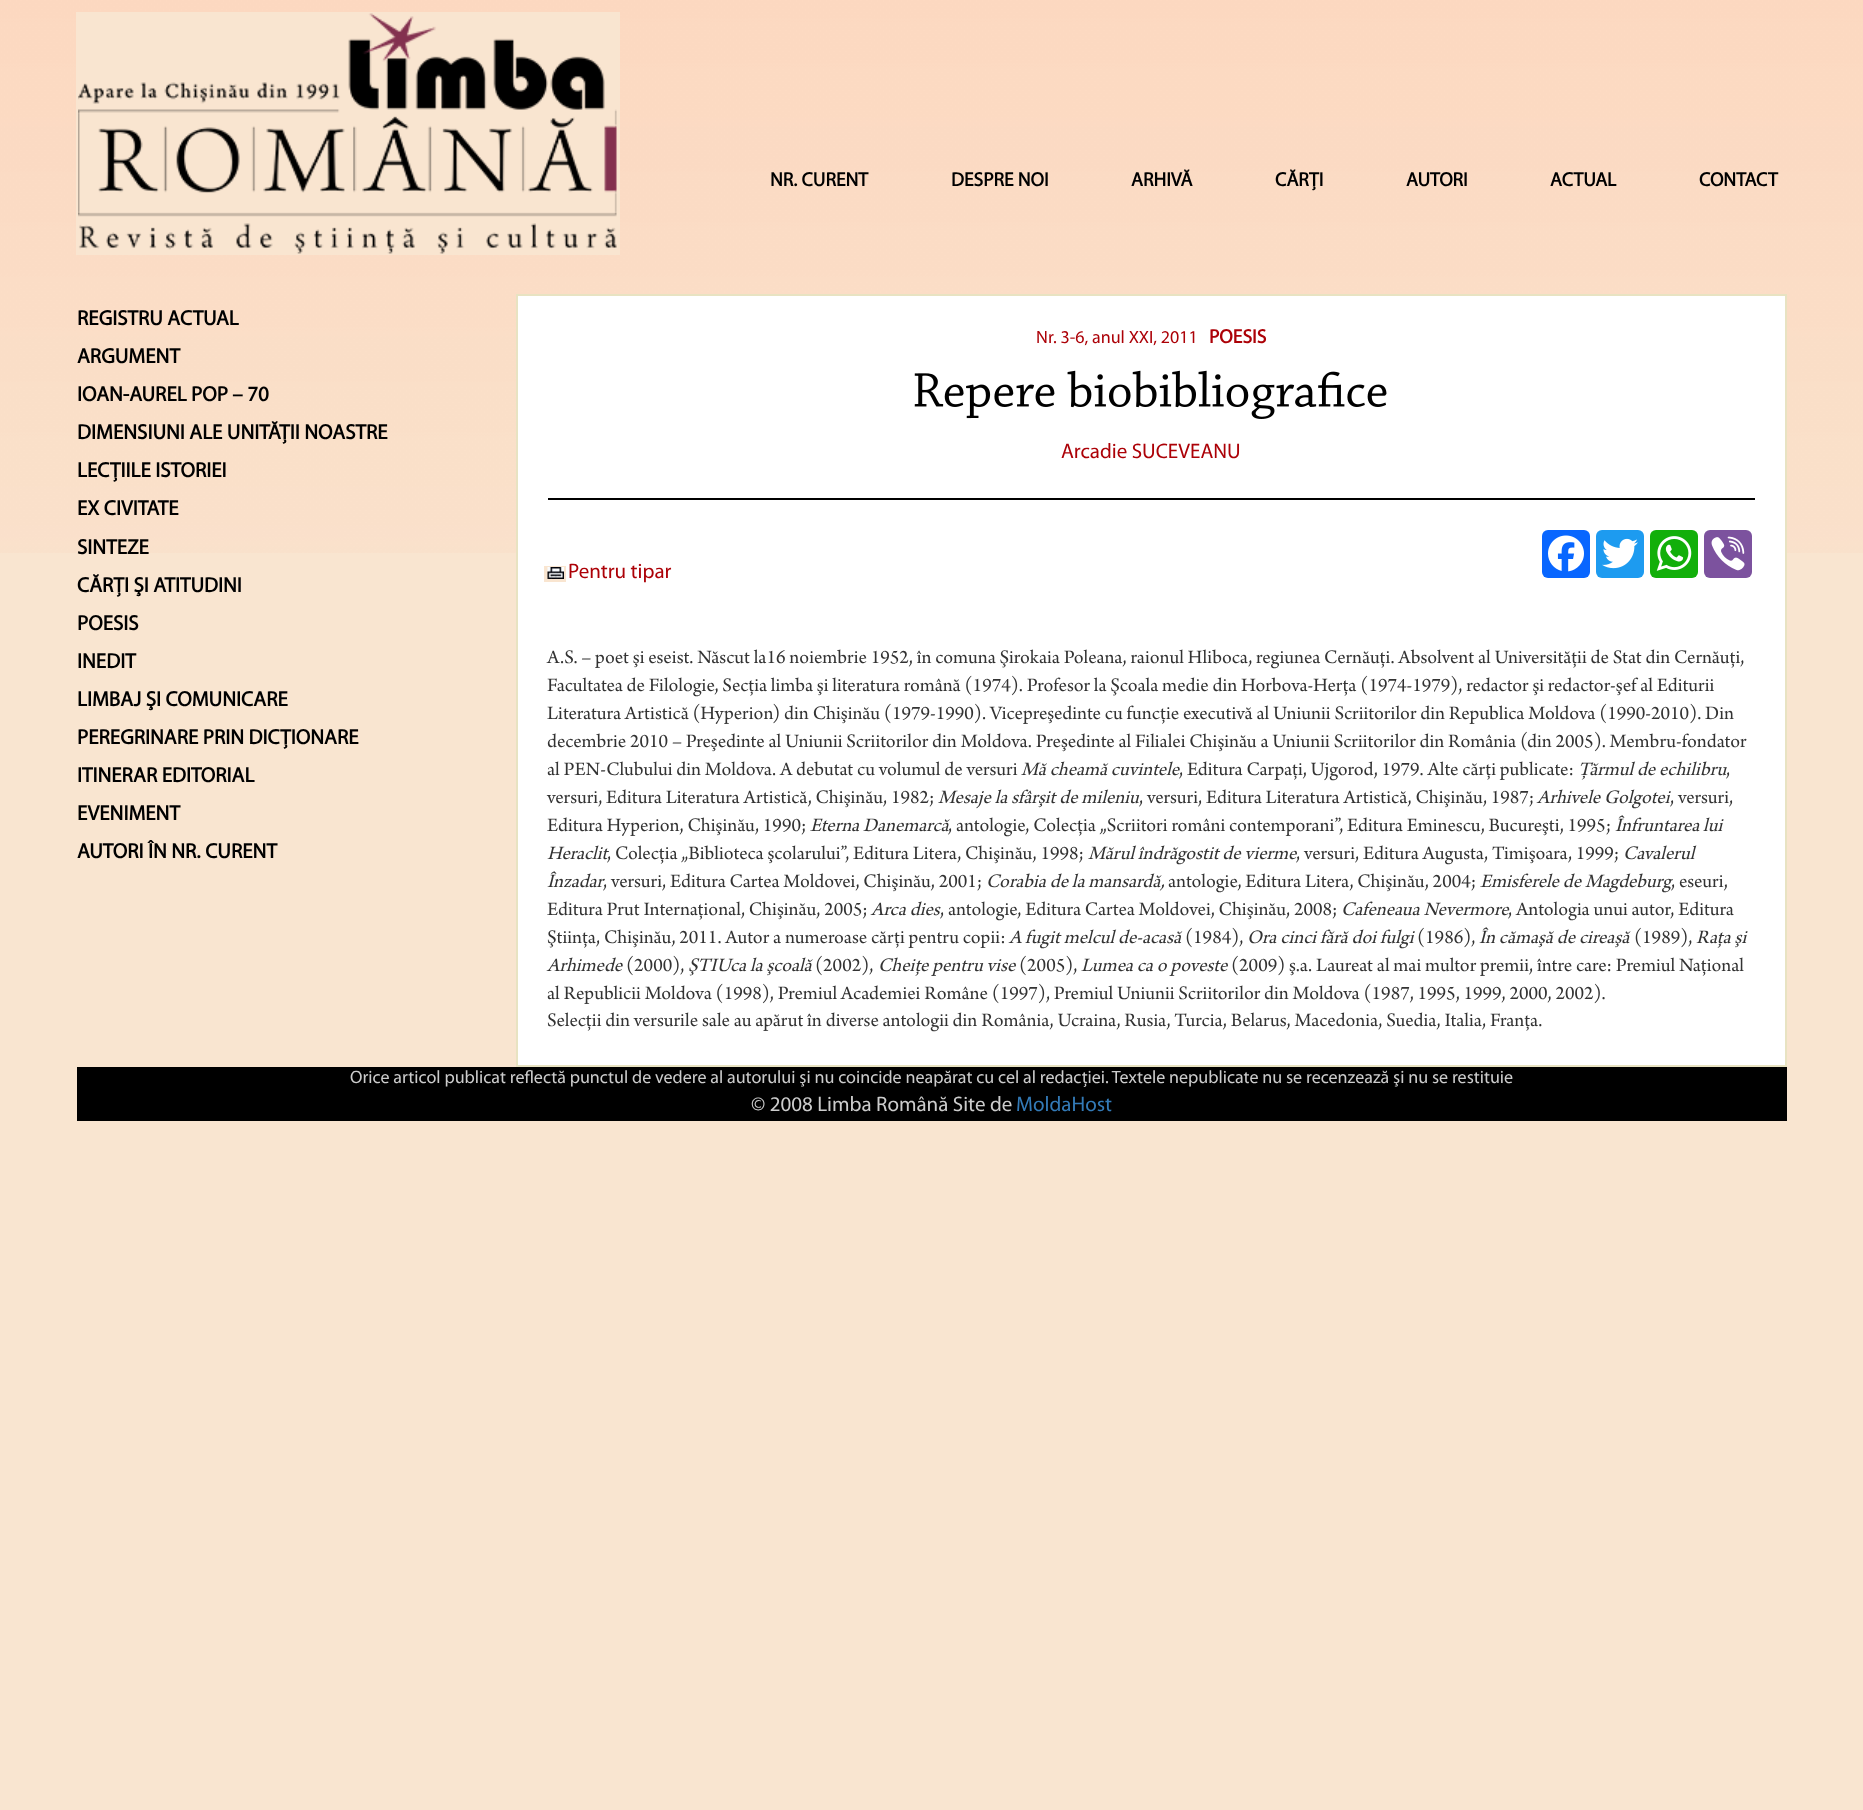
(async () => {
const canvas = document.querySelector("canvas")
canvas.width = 1863
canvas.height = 1810
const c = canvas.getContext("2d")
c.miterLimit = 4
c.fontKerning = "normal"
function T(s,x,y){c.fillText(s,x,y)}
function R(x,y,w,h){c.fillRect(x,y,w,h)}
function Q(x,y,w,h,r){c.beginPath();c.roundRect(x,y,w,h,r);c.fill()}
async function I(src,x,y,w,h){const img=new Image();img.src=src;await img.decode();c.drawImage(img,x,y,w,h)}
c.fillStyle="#f9e5d0"
R(0,0,1863,1810)
await I("1.png",0,0,1863,553)
await I("2.png",76,12,544,243)
c.font="bold 19.5px Myriad"
c.fillStyle="#000"
T("NR. CURENT",770,186)
T("DESPRE NOI",951,186)
T("ARHIVĂ",1131,186)
T("CĂRȚI",1275,186)
T("AUTORI",1406,186)
T("ACTUAL",1550,186)
T("CONTACT",1699,186)
c.font="bold 21px Myriad"
T("REGISTRU ACTUAL",77,325)
T("ARGUMENT",77,363)
T("IOAN-AUREL POP – 70",77,401)
T("DIMENSIUNI ALE UNITĂŢII NOASTRE",77,439)
T("LECŢIILE ISTORIEI",77,477)
T("EX CIVITATE",77,515)
T("SINTEZE",77,554)
T("CĂRŢI ŞI ATITUDINI",77,592)
T("POESIS",77,630)
T("INEDIT",77,668)
T("LIMBAJ ŞI COMUNICARE",77,706)
T("PEREGRINARE PRIN DICȚIONARE",77,744)
T("ITINERAR EDITORIAL",77,782)
T("EVENIMENT",77,820)
T("AUTORI ÎN NR. CURENT",77,858)
c.fillStyle="#fff"
c.beginPath()
c.rect(517,295,1269,771)
c.fill()
c.strokeStyle="#e8e3c2"
c.lineWidth=2
c.stroke()
c.font="18px Myriad"
c.fillStyle="#ac0107"
T("Nr. 3-6, anul XXI, 2011",1036,343)
c.font="bold 19.5px Myriad"
T("POESIS",1209,343)
await I("3.png",914,370,473,49)
c.font="21px Myriad"
T("Arcadie SUCEVEANU",1061,458)
c.fillStyle="#000"
R(548,498,1207,2)
await I("4.png",544,566,22,16)
c.fillStyle="#ac0107"
T("Pentru tipar",568,578)
c.fillStyle="#0866ff"
Q(1542,530,48,48,6)
await I("5.png",1548,535,36,37)
c.fillStyle="#1d9bf0"
Q(1596,530,48,48,6)
await I("6.png",1602,538,36,31)
c.fillStyle="#12af0a"
Q(1650,530,48,48,6)
await I("7.png",1656,536,36,35)
c.fillStyle="#7c529e"
Q(1704,530,48,48,6)
await I("8.png",1711,536,34,35)
c.font="20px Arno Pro"
c.fillStyle="#333"
T("A.S. – poet şi eseist. Născut la16 noiembrie 1952, în comuna Şirokaia Poleana, raionul Hliboca, regiunea Cernăuţi. Absolvent al Universităţii de Stat din Cernăuţi,",547,663)
T("Facultatea de Filologie, Secţia limba şi literatura română (1974). Profesor la Şcoala medie din Horbova-Herţa (1974-1979), redactor şi redactor-şef al Editurii",547,691)
T("Literatura Artistică (Hyperion) din Chişinău (1979-1990). Vicepreşedinte cu funcţie executivă al Uniunii Scriitorilor din Republica Moldova (1990-2010). Din",547,719)
T("decembrie 2010 – Preşedinte al Uniunii Scriitorilor din Moldova. Preşedinte al Filialei Chişinău a Uniunii Scriitorilor din România (din 2005). Membru-fondator",547,747)
T("al PEN-Clubului din Moldova. A debutat cu volumul de versuri",547,775)
c.font="italic 20px Arno Pro"
T("Mă cheamă cuvintele",1021,775)
c.font="20px Arno Pro"
T(", Editura Carpaţi, Ujgorod, 1979. Alte cărţi publicate:",1179,775)
c.font="italic 20px Arno Pro"
T("Ţărmul de echilibru",1578,775)
c.font="20px Arno Pro"
T(",",1726,775)
T("versuri, Editura Literatura Artistică, Chişinău, 1982;",547,803)
c.font="italic 20px Arno Pro"
T("Mesaje la sfârşit de mileniu",938,803)
c.font="20px Arno Pro"
T(", versuri, Editura Literatura Artistică, Chişinău, 1987;",1139,803)
c.font="italic 20px Arno Pro"
T("Arhivele Golgotei",1537,803)
c.font="20px Arno Pro"
T(", versuri,",1670,803)
T("Editura Hyperion, Chişinău, 1990;",547,831)
c.font="italic 20px Arno Pro"
T("Eterna Danemarcă",810,831)
c.font="20px Arno Pro"
T(", antologie, Colecţia „Scriitori români contemporani”, Editura Eminescu, Bucureşti, 1995;",948,831)
c.font="italic 20px Arno Pro"
T("Înfruntarea lui",1615,831)
T("Heraclit",547,859)
c.font="20px Arno Pro"
T(", Colecţia „Biblioteca şcolarului”, Editura Litera, Chişinău, 1998;",607,859)
c.font="italic 20px Arno Pro"
T("Mărul îndrăgostit de vierme",1088,859)
c.font="20px Arno Pro"
T(", versuri, Editura Augusta, Timişoara, 1999;",1296,859)
c.font="italic 20px Arno Pro"
T("Cavalerul",1623,859)
T("Înzadar",547,887)
c.font="20px Arno Pro"
T(", versuri, Editura Cartea Moldovei, Chişinău, 2001;",603,887)
c.font="italic 20px Arno Pro"
T("Corabia de la mansardă,",986,887)
c.font="20px Arno Pro"
T("antologie, Editura Litera, Chişinău, 2004;",1168,887)
c.font="italic 20px Arno Pro"
T("Emisferele de Magdeburg",1480,887)
c.font="20px Arno Pro"
T(", eseuri,",1671,887)
T("Editura Prut Internaţional, Chişinău, 2005;",547,915)
c.font="italic 20px Arno Pro"
T("Arca dies",871,915)
c.font="20px Arno Pro"
T(", antologie, Editura Cartea Moldovei, Chişinău, 2008;",940,915)
c.font="italic 20px Arno Pro"
T("Cafeneaua Nevermore",1341,915)
c.font="20px Arno Pro"
T(", Antologia unui autor, Editura",1508,915)
T("Ştiinţa, Chişinău, 2011. Autor a numeroase cărţi pentru copii:",547,943)
c.font="italic 20px Arno Pro"
T("A fugit melcul de-acasă",1009,943)
c.font="20px Arno Pro"
T("(1984),",1185,943)
c.font="italic 20px Arno Pro"
T("Ora cinci fără doi fulgi",1247,943)
c.font="20px Arno Pro"
T("(1986),",1417,943)
c.font="italic 20px Arno Pro"
T("În cămaşă de cireaşă",1479,943)
c.font="20px Arno Pro"
T("(1989),",1634,943)
c.font="italic 20px Arno Pro"
T("Raţa şi",1696,943)
T("Arhimede",547,971)
c.font="20px Arno Pro"
T("(2000),",626,971)
c.font="italic 20px Arno Pro"
T("ŞTIUca la şcoală",688,971)
c.font="20px Arno Pro"
T("(2002),",815,971)
c.font="italic 20px Arno Pro"
T("Cheiţe pentru vise",878,971)
c.font="20px Arno Pro"
T("(2005),",1019,971)
c.font="italic 20px Arno Pro"
T("Lumea ca o poveste",1081,971)
c.font="20px Arno Pro"
T("(2009) ş.a. Laureat al mai multor premii, între care: Premiul Naţional",1231,971)
T("al Republicii Moldova (1998), Premiul Academiei Române (1997), Premiul Uniunii Scriitorilor din Moldova (1987, 1995, 1999, 2000, 2002).",547,999)
T("Selecţii din versurile sale au apărut în diverse antologii din România, Ucraina, Rusia, Turcia, Belarus, Macedonia, Suedia, Italia, Franţa.",547,1026)
c.fillStyle="#000"
R(77,1067,1710,54)
c.font="18px Myriad"
c.fillStyle="#ccc"
T("Orice articol publicat reflectă punctul de vedere al autorului şi nu coincide neapărat cu cel al redacţiei. Textele nepublicate nu se recenzează şi nu se restituie",350,1083)
c.font="21px Myriad"
T("© 2008 Limba Română Site de",751,1111)
c.fillStyle="#337ab7"
T("MoldaHost",1016,1111)
})()
